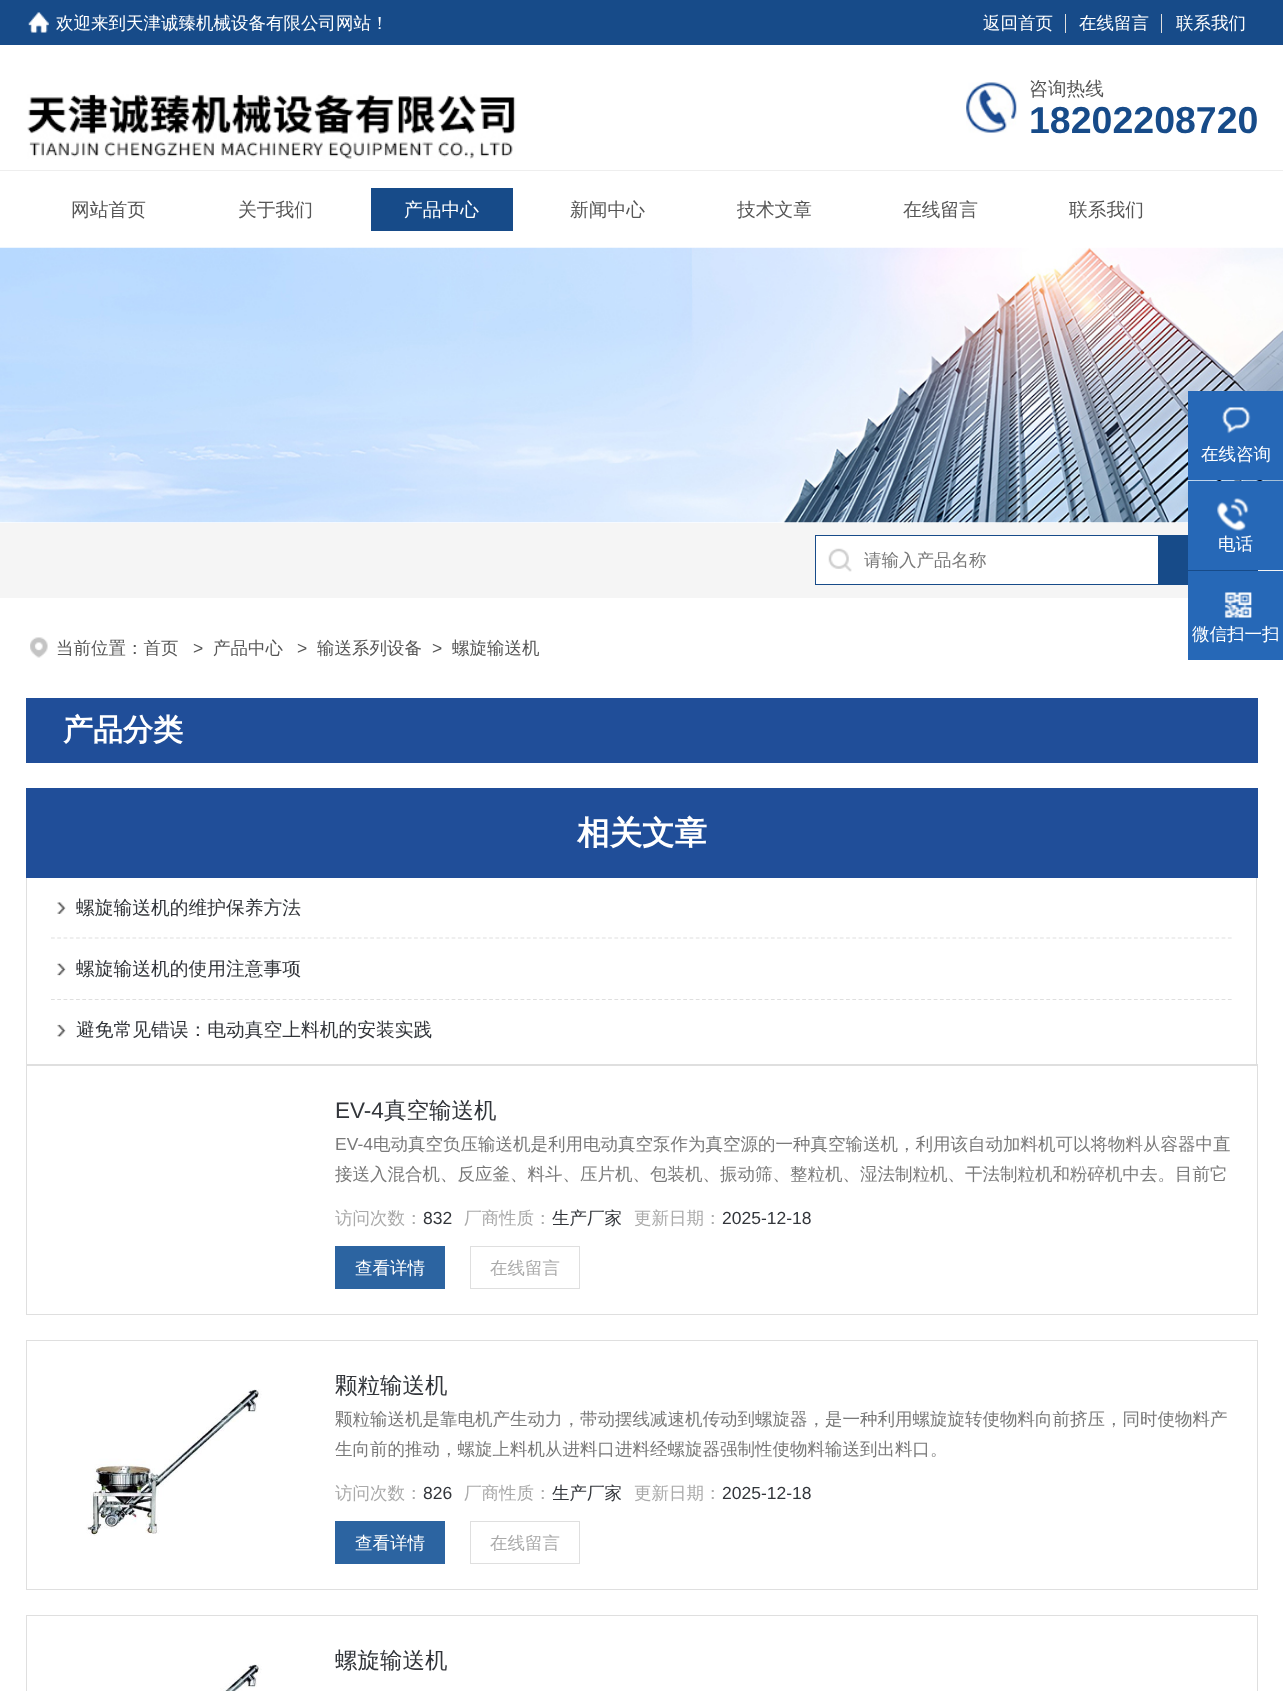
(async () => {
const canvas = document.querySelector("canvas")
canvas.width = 1283
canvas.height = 1691
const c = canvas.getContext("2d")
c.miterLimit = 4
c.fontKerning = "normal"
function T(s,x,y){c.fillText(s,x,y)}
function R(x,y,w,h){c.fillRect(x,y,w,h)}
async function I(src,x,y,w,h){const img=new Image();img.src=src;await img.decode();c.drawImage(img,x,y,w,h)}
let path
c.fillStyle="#fff"
R(0,0,1283,1691)
c.fillStyle="#174b89"
R(0,0,1283,45)
await I("1.png",28,12,21,21)
c.font="500 17.5px WenQuanYi Zen Hei"
c.fillStyle="#fff"
T("欢迎来到天津诚臻机械设备有限公司网站！",56,29)
T("返回首页",983,29)
c.fillStyle="#dfdfdf"
R(1065,14,1,19)
c.fillStyle="#fff"
T("在线留言",1079,29)
c.fillStyle="#dfdfdf"
R(1161,14,1,19)
c.fillStyle="#fff"
T("联系我们",1176,29)
await I("2.png",27,94,489,65)
await I("3.png",966,82,51,51)
c.font="500 18.75px WenQuanYi Zen Hei"
c.fillStyle="#565656"
T("咨询热线",1029,95)
c.font="bold 37.5px Liberation Sans"
c.fillStyle="#174b89"
T("18202208720",1029,133)
c.fillStyle="#eee"
R(0,170,1283,1)
c.font="500 18.75px WenQuanYi Zen Hei"
c.fillStyle="#565656"
T("网站首页",71,216)
T("关于我们",238,216)
c.fillStyle="#174b89"
R(371,188,142,43)
c.fillStyle="#fff"
T("产品中心",404,216)
c.fillStyle="#565656"
T("新闻中心",570,216)
T("技术文章",737,216)
T("在线留言",903,216)
T("联系我们",1069,216)
await I("4.png",0,247,1283,276)
c.fillStyle="#f5f5f5"
R(0,523,1283,75)
c.fillStyle="#fff"
R(816,536,342,48)
await I("5.png",828,548,24,24)
c.fillStyle="#174b89"
R(815,535,343,1)
R(815,584,343,1)
R(815,535,1,50)
c.font="500 17.5px WenQuanYi Zen Hei"
c.fillStyle="#797979"
T("请输入产品名称",864,566)
c.fillStyle="#174b89"
R(1158,535,100,50)
c.fillStyle="#2668b7"
R(1188,391,95,89)
await I("6.png",1222,407,29,27)
c.fillStyle="#fff"
T("在线咨询",1201,460)
c.fillStyle="#2668b7"
R(1188,481,95,89)
await I("7.png",1217,498,32,33)
c.fillStyle="#fff"
T("电话",1218,550)
c.fillStyle="#2668b7"
R(1188,571,95,89)
await I("8.png",1224,592,28,26)
c.fillStyle="#fff"
T("微信扫一扫",1192,640)
await I("9.png",30,637,18,21)
c.fillStyle="#565656"
T("当前位置：首页",56,654)
c.font="17.5px Liberation Sans"
T(">",193,654)
c.font="500 17.5px WenQuanYi Zen Hei"
T("产品中心",213,654)
c.font="17.5px Liberation Sans"
T(">",297,654)
c.font="500 17.5px WenQuanYi Zen Hei"
T("输送系列设备",317,654)
c.font="17.5px Liberation Sans"
T(">",432,654)
c.font="500 17.5px WenQuanYi Zen Hei"
T("螺旋输送机",452,654)
c.fillStyle="#204e99"
R(26,698,1232,65)
c.font="bold 30px WenQuanYi Zen Hei"
c.fillStyle="#fff"
T("产品分类",63,740)
c.fillStyle="#204e99"
R(26,788,1232,90)
c.font="bold 32.5px WenQuanYi Zen Hei"
c.fillStyle="#fff"
T("相关文章",577,844)
c.fillStyle="#dfdfdf"
R(1256,878,1,187)
R(26,1064,1232,1)
R(26,878,1,187)
path = new Path2D("M51 938h1181.5")
c.strokeStyle="#dfdfdf"
c.lineWidth=1.2
c.setLineDash([3.75,2.51])
c.stroke(path)
await I("10.png",57,902,9,12)
c.font="500 18.75px WenQuanYi Zen Hei"
c.fillStyle="#32353a"
T("螺旋输送机的维护保养方法",76,914)
path = new Path2D("M51 999.5h1181.5")
c.stroke(path)
await I("11.png",57,963,9,13)
T("螺旋输送机的使用注意事项",76,975)
await I("12.png",57,1024,9,13)
T("避免常见错误：电动真空上料机的安装实践",76,1036)
c.lineWidth=1
c.setLineDash([])
c.strokeRect(26.5,1065.5,1231,249)
c.font="22.5px Liberation Sans"
T("EV-4",335,1118)
c.font="500 22.5px WenQuanYi Zen Hei"
T("真空输送机",384,1118)
c.font="17.5px Liberation Sans"
c.fillStyle="#797979"
T("EV-4",335,1150)
c.font="500 17.5px WenQuanYi Zen Hei"
T("电动真空负压输送机是利用电动真空泵作为真空源的一种真空输送机，利用该自动加料机可以将物料从容器中直",373,1150)
T("接送入混合机、反应釜、料斗、压片机、包装机、振动筛、整粒机、湿法制粒机、干法制粒机和粉碎机中去。目前它",335,1180)
c.fillStyle="#aaa"
T("访问次数：",335,1224)
c.font="17.5px Liberation Sans"
c.fillStyle="#32353a"
T("832",423,1224)
c.font="500 17.5px WenQuanYi Zen Hei"
c.fillStyle="#aaa"
T("厂商性质：",464,1224)
c.fillStyle="#32353a"
T("生产厂家",552,1224)
c.fillStyle="#aaa"
T("更新日期：",634,1224)
c.font="17.5px Liberation Sans"
c.fillStyle="#32353a"
T("2025-12-18",722,1224)
c.fillStyle="#2c64a1"
R(335,1246,110,43)
c.font="500 17.5px WenQuanYi Zen Hei"
c.fillStyle="#fff"
T("查看详情",355,1274)
c.strokeRect(470.5,1246.5,109,42)
c.fillStyle="#aaa"
T("在线留言",490,1274)
c.strokeRect(26.5,1340.5,1231,249)
await I("13.png",86,1389,176,147)
c.font="500 22.5px WenQuanYi Zen Hei"
c.fillStyle="#32353a"
T("颗粒输送机",335,1393)
c.font="500 17.5px WenQuanYi Zen Hei"
c.fillStyle="#797979"
T("颗粒输送机是靠电机产生动力，带动摆线减速机传动到螺旋器，是一种利用螺旋旋转使物料向前挤压，同时使物料产",335,1425)
T("生向前的推动，螺旋上料机从进料口进料经螺旋器强制性使物料输送到出料口。",335,1455)
c.fillStyle="#aaa"
T("访问次数：",335,1499)
c.font="17.5px Liberation Sans"
c.fillStyle="#32353a"
T("826",423,1499)
c.font="500 17.5px WenQuanYi Zen Hei"
c.fillStyle="#aaa"
T("厂商性质：",464,1499)
c.fillStyle="#32353a"
T("生产厂家",552,1499)
c.fillStyle="#aaa"
T("更新日期：",634,1499)
c.font="17.5px Liberation Sans"
c.fillStyle="#32353a"
T("2025-12-18",722,1499)
c.fillStyle="#2c64a1"
R(335,1521,110,43)
c.font="500 17.5px WenQuanYi Zen Hei"
c.fillStyle="#fff"
T("查看详情",355,1549)
c.strokeRect(470.5,1521.5,109,42)
c.fillStyle="#aaa"
T("在线留言",490,1549)
c.strokeRect(26.5,1615.5,1231,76)
c.font="500 22.5px WenQuanYi Zen Hei"
c.fillStyle="#32353a"
T("螺旋输送机",335,1668)
await I("14.png",220,1664,42,27)
})()
